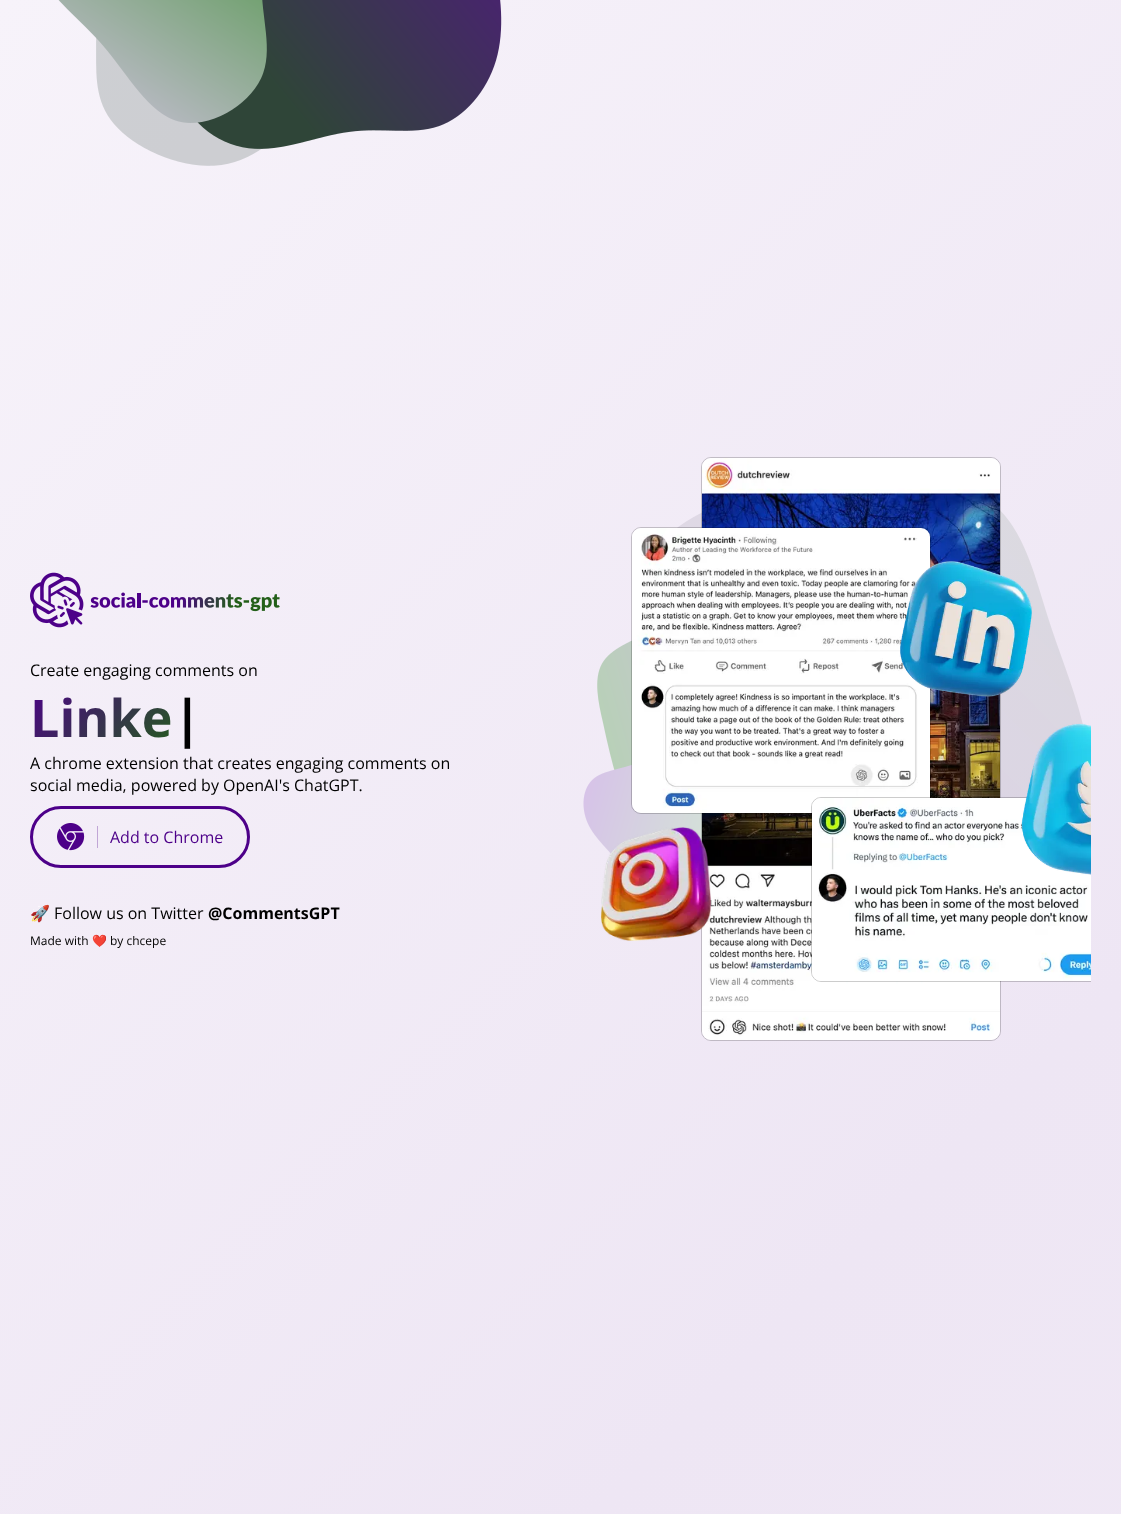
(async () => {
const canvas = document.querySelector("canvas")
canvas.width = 1121
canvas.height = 1514
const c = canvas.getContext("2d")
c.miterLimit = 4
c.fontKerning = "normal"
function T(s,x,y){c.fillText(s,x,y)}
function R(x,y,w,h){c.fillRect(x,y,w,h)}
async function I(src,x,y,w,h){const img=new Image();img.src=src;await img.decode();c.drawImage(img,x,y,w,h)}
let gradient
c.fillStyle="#fff"
R(0,0,1121,1514)
gradient = c.createLinearGradient(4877,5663,-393,393)
gradient.addColorStop(0,"#fff")
gradient.addColorStop(.8,"#eee6f4")
gradient.addColorStop(1,"#f7f3fa")
c.fillStyle = gradient
R(0,0,1121,1514)
await I("1.png",58,0,444,166)
await I("2.png",30,572,250,56)
c.font="16px Open Sans"
c.fillStyle="#000"
T("Create engaging comments on",30,676)
c.font="bold 52px Open Sans"
gradient = c.createLinearGradient(46,664,160,772)
gradient.addColorStop(0,"#4d0089")
gradient.addColorStop(1,"#235f19")
c.fillStyle = gradient
T("Linke",30,737)
c.fillStyle="#000"
T("|",173,737)
c.font="16px Open Sans"
T("A chrome extension that creates engaging comments on",30,769)
T("social media, powered by OpenAI's ChatGPT.",30,791)
c.beginPath()
c.roundRect(31.5,807.5,217,59,29.5)
c.strokeStyle="#4d0089"
c.lineWidth=3
c.stroke()
await I("3.png",57,823,28,28)
c.fillStyle="#c1a6d6"
R(97,826,1,22)
c.fillStyle="#4d0089"
T("Add to Chrome",110,843)
c.font="16px Noto Color Emoji"
c.fillStyle="#000"
T("🚀",30,919)
c.font="16px Open Sans"
T("Follow us on Twitter",54,919)
c.font="bold 16px Open Sans"
T("@CommentsGPT",208,919)
c.font="12px Open Sans"
T("Made with",30,945)
c.font="12px Noto Color Emoji"
T("❤️",92,945)
c.font="12px Open Sans"
T("by chcepe",110,945)
await I("4.png",583,510,500,345)
await I("5.png",601,457,490,584)
})()
